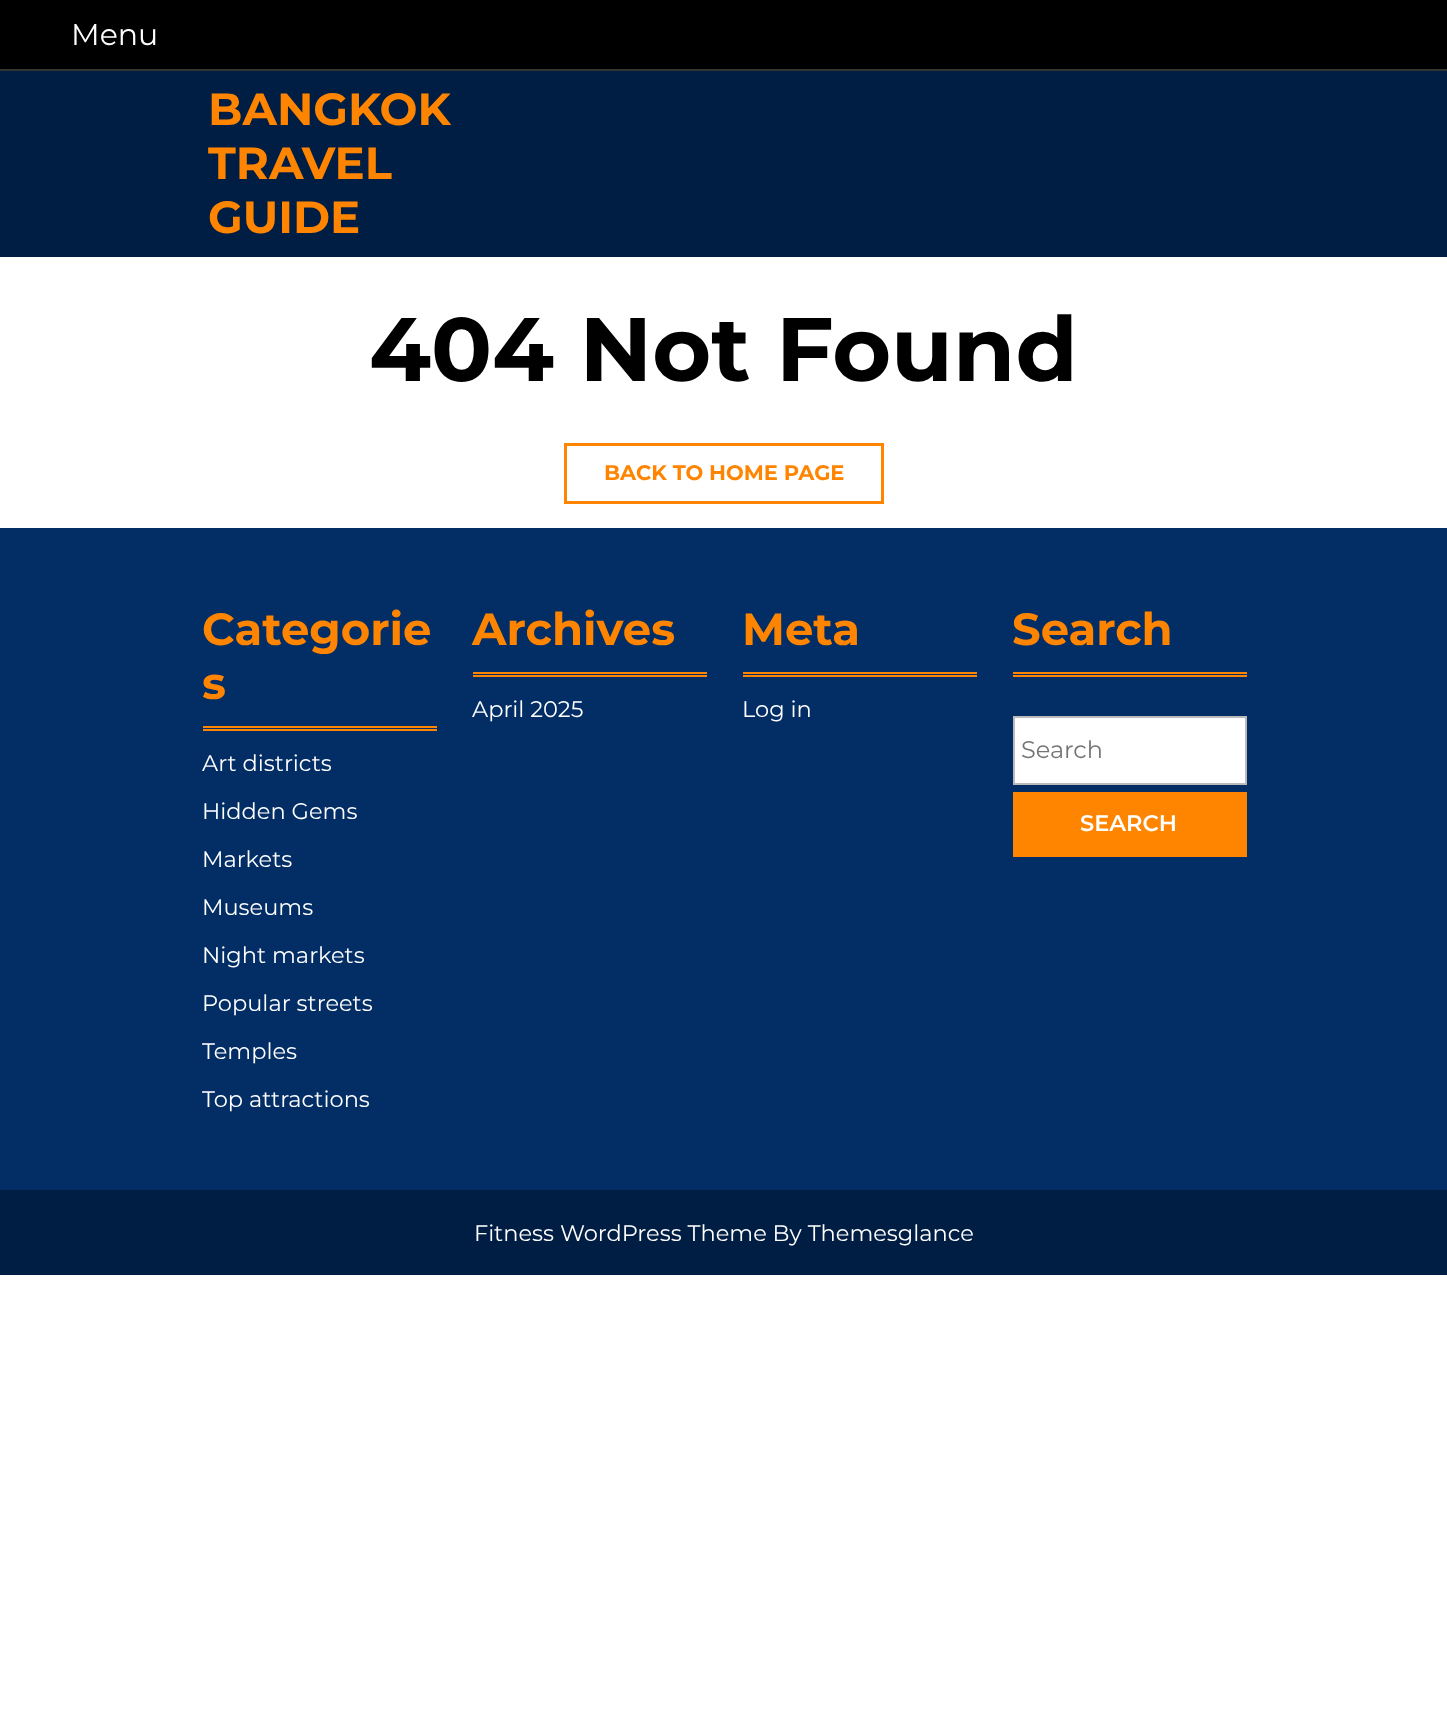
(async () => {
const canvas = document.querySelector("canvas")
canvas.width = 1447
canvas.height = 1721
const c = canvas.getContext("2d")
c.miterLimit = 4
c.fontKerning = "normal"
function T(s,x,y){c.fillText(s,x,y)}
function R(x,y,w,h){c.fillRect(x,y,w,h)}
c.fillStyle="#fff"
R(0,0,1447,1721)
c.fillStyle="#001e44"
R(0,71,1447,186)
c.fillStyle="#000"
R(0,0,1447,69)
c.fillStyle="#333"
R(0,69,1447,2)
c.font="30px Montserrat"
c.fillStyle="#fff"
T("Menu",71,45)
c.font="bold 45px Montserrat"
c.fillStyle="#ff8500"
T("BANGKOK",208,125)
T("TRAVEL",208,179)
T("GUIDE",208,233)
c.font="bold 90px Montserrat"
c.fillStyle="#000"
T("404 Not Found",369,381)
c.strokeStyle="#ff8500"
c.lineWidth=3
c.strokeRect(565.5,444.5,317,58)
c.font="bold 21px Montserrat"
c.fillStyle="#ff8500"
T("BACK TO HOME PAGE",604,480)
c.fillStyle="#022d65"
R(0,528,1447,662)
c.fillStyle="#ff8500"
R(203,726,234,2)
R(203,729,234,2)
c.font="bold 45px Montserrat"
T("Categorie",202,645)
T("s",202,699)
c.font="22.5px Montserrat"
c.fillStyle="#fff"
T("Art districts",202,771)
T("Hidden Gems",202,819)
T("Markets",202,867)
T("Museums",202,915)
T("Night markets",202,963)
T("Popular streets",202,1011)
T("Temples",202,1059)
T("Top attractions",202,1107)
c.fillStyle="#ff8500"
R(473,672,234,2)
R(473,675,234,2)
c.font="bold 45px Montserrat"
T("Archives",472,645)
c.font="22.5px Montserrat"
c.fillStyle="#fff"
T("April 2025",472,717)
c.fillStyle="#ff8500"
R(743,672,234,2)
R(743,675,234,2)
c.font="bold 45px Montserrat"
T("Meta",742,645)
c.font="22.5px Montserrat"
c.fillStyle="#fff"
T("Log in",742,717)
c.fillStyle="#ff8500"
R(1013,672,234,2)
R(1013,675,234,2)
c.font="bold 45px Montserrat"
T("Search",1012,645)
c.fillStyle="#fff"
c.beginPath()
c.rect(1014,717,232,67)
c.fill()
c.strokeStyle="#bbb"
c.lineWidth=2
c.stroke()
c.font="24px Montserrat"
c.fillStyle="#757575"
T("Search",1021,758)
c.fillStyle="#ff8500"
R(1013,792,234,65)
c.font="600 22.5px Montserrat"
c.fillStyle="#fff"
T("SEARCH",1080,831)
c.fillStyle="#001e44"
R(0,1190,1447,85)
c.font="22.5px Montserrat"
c.fillStyle="#fff"
T("Fitness WordPress Theme By Themesglance",474,1241)
})()
